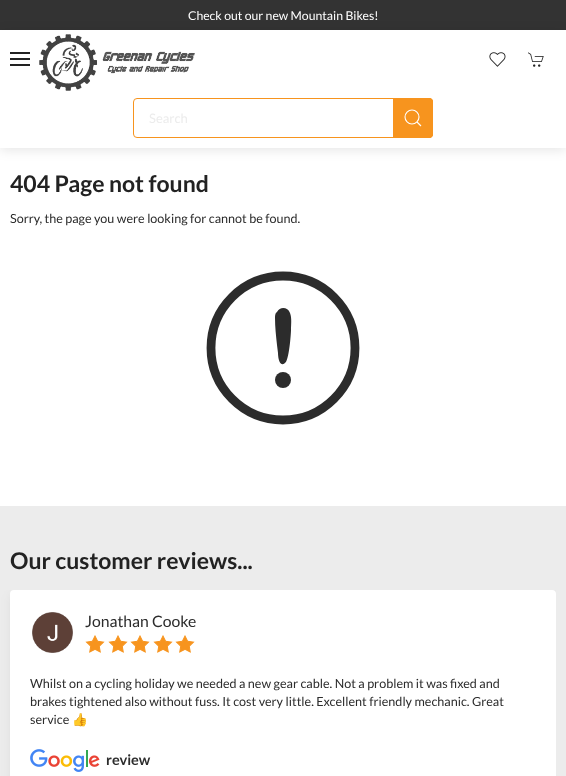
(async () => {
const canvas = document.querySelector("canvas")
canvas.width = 566
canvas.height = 776
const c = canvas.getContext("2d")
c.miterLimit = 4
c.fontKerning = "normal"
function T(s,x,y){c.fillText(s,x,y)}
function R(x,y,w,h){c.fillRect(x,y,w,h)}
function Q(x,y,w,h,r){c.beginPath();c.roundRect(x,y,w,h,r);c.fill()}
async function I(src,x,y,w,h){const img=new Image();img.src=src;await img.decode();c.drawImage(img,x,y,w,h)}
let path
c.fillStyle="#fff"
R(0,0,566,776)
c.fillStyle="#333"
R(0,0,566,30)
c.font="12.25px Lato"
c.fillStyle="#fff"
T("Check out our new Mountain Bikes!",188,20)
c.fillStyle="#0000001a"
c.filter="blur(6px)"
c.beginPath()
c.rect(0,32,566,118)
c.fill()
c.filter="none"
c.fillStyle="#fff"
R(0,30,566,118)
c.fillStyle="#222"
R(10,52,20,2)
R(10,58,20,2)
R(10,64,20,2)
await I("1.png",39,34,156,57)
await I("2.png",489,52,17,15)
await I("3.png",528,52,16,15)
c.beginPath()
c.roundRect(133.5,98.5,299,39,3.5)
c.strokeStyle="#f7941e"
c.stroke()
c.font="13px Lato"
c.fillStyle="#ececec"
T("Search",149,123)
c.fillStyle="#f7941e"
c.beginPath()
c.roundRect(393,98,40,40,[0,4,4,0])
c.fill()
path = new Path2D("M393 98h36c2 0 4 2 4 4v32c0 2-2 4-4 4h-36zm0 1h36c2 0 3 1 3 3v32c0 2-1 3-3 3h-36z")
c.fill(path,"evenodd")
c.beginPath()
c.arc(412,117,7,0,7)
c.strokeStyle="#fff"
c.lineWidth=1.1
c.stroke()
path = new Path2D("M417 122l4 4z")
c.stroke(path)
c.font="bold 23px Lato"
c.fillStyle="#222"
T("404 Page not found",10,192)
c.font="12.6px Lato"
c.fillStyle="#2c2c2c"
T("Sorry, the page you were looking for cannot be found.",10,223)
c.beginPath()
c.arc(283,380,8,0,7)
c.fill()
c.beginPath()
c.arc(283,348,72,0,7)
c.strokeStyle="#2c2c2c"
c.lineWidth=8.8
c.stroke()
path = new Path2D("M291 330c0 4-2 31-6 33c-6 5-7-7-7-10l-1-8c-1-9-2-18-2-27c0-2 0-5 2-6c3-6 11-5 13 1c2 5 1 12 1 17z")
c.fill(path)
c.fillStyle="#ececec"
R(0,506,566,270)
c.font="bold 23px Lato"
c.fillStyle="#222"
T("Our customer reviews...",10,569)
c.save()
c.beginPath()
c.rect(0,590,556,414)
c.clip()
c.fillStyle="#00000014"
c.filter="blur(6px)"
c.beginPath()
c.roundRect(12,594,546,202,4)
c.fill()
c.filter="none"
c.restore()
c.fillStyle="#fff"
Q(10,590,546,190,4)
await I("4.png",32,612,41,41)
c.font="15.75px Lato"
c.fillStyle="#2c2c2c"
T("Jonathan Cooke",85,627)
await I("5.png",85,635,20,18)
await I("5.png",108,635,20,18)
await I("5.png",130,635,20,18)
await I("5.png",153,635,20,18)
await I("5.png",175,635,20,18)
c.font="12.6px Lato"
T("Whilst on a cycling holiday we needed a new gear cable. Not a problem it was fixed and",30,688)
T("brakes tightened also without fuss. It cost very little. Excellent friendly mechanic. Great",30,706)
T("service",30,724)
c.font="12.6px Noto Color Emoji"
T("👍",72,724)
await I("6.png",30,749,70,23)
c.font="bold 14.5px Lato"
T("review",106,765)
})()
